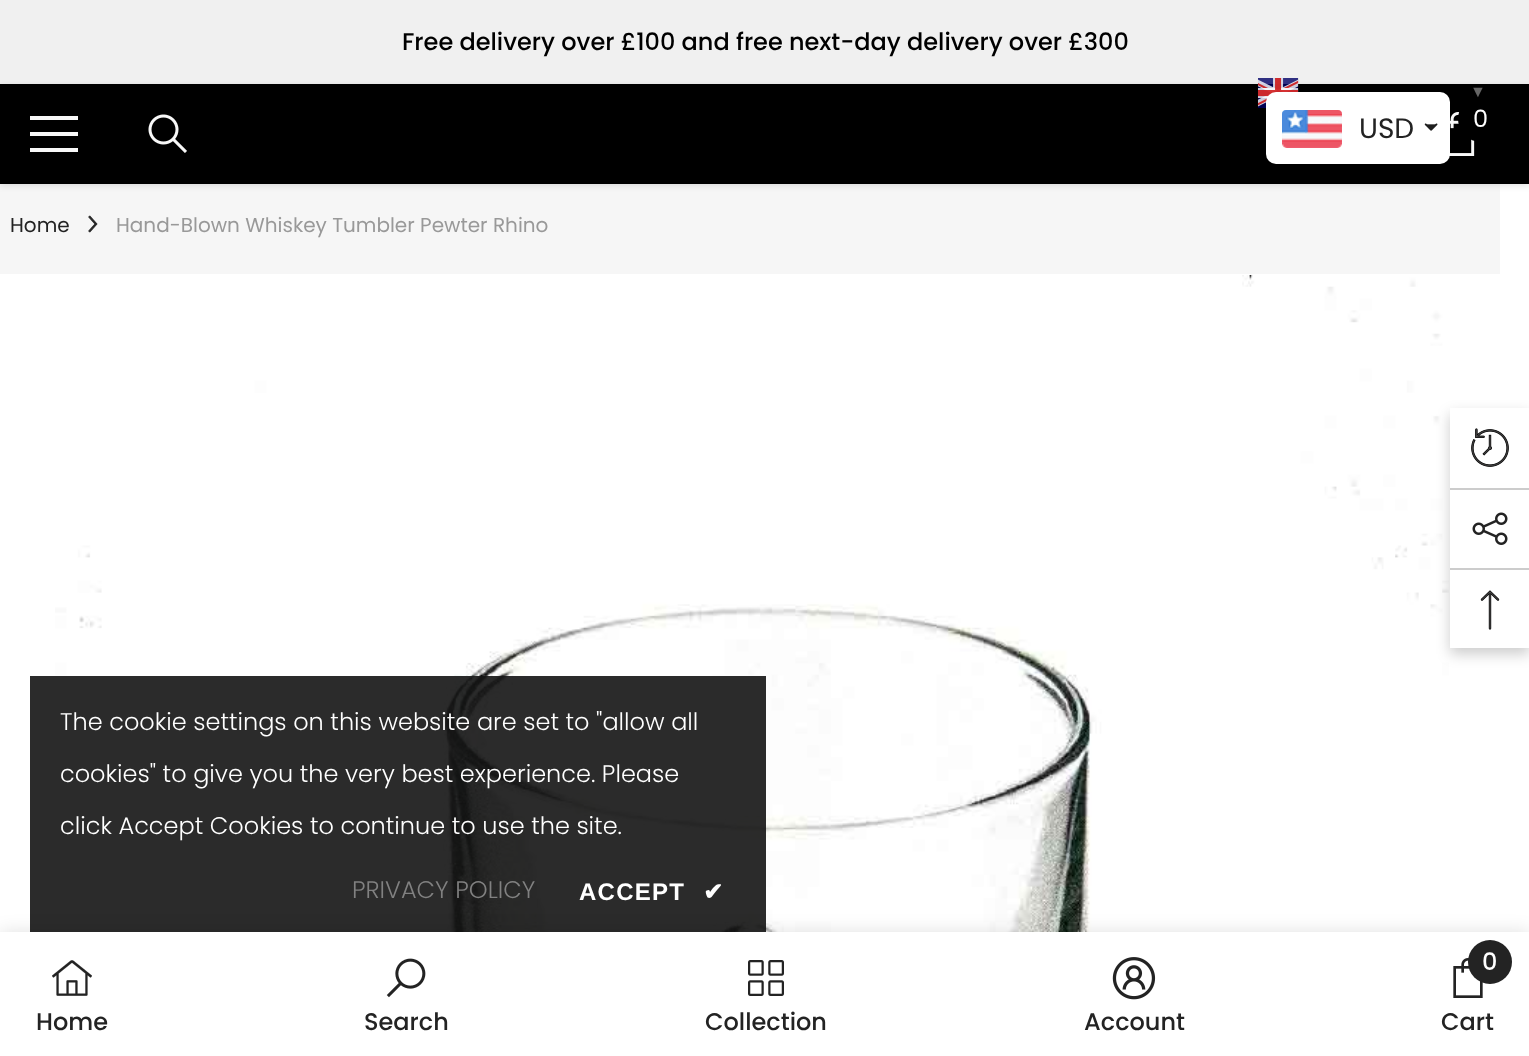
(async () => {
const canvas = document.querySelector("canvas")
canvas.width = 1529
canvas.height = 1056
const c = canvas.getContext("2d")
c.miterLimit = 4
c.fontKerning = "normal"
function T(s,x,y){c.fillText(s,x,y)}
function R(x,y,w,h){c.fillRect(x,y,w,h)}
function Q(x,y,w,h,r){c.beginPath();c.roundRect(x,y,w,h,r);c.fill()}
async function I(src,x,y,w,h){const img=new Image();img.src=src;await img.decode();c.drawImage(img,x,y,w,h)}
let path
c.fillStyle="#fff"
R(0,0,1529,1056)
c.fillStyle="#f0f0f0"
R(0,0,1529,84)
c.font="500 24px Poppins"
c.fillStyle="#000"
T("Free delivery over £100 and free next-day delivery over £300",402,50)
c.fillStyle="#f6f6f6"
R(0,184,1500,90)
c.fillStyle="#0000001a"
c.filter="blur(3px)"
c.beginPath()
c.rect(0,86,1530,100)
c.fill()
c.filter="none"
c.fillStyle="#000"
R(0,84,1529,100)
c.fillStyle="#f8f8f8"
R(30,132,48,4)
R(30,116,48,4)
R(30,148,48,4)
await I("1.png",148,114,39,39)
await I("2.png",1449,112,26,44)
c.fillStyle="#000"
c.beginPath()
c.arc(1481,119,23,0,7)
c.fill()
c.font="24px Poppins"
c.fillStyle="#fff"
T("0",1473,127)
c.font="20px Poppins"
c.fillStyle="#232323"
T("Home",10,232)
await I("3.png",88,215,10,18)
c.fillStyle="#999"
T("Hand-Blown Whiskey Tumbler Pewter Rhino",116,232)
await I("4.png",55,275,1394,657)
c.fillStyle="#141414e6"
R(30,676,736,256)
c.fillStyle="#0000001f"
c.filter="blur(9px)"
c.beginPath()
c.rect(0,932,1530,124)
c.fill()
c.filter="none"
c.fillStyle="#fff"
R(0,932,1529,124)
await I("5.png",52,960,40,36)
c.font="500 24px Poppins"
c.fillStyle="#232323"
T("Home",36,1030)
await I("6.png",386,958,40,40)
T("Search",364,1030)
await I("7.png",748,960,36,36)
T("Collection",705,1030)
await I("8.png",1112,957,44,43)
T("Account",1084,1030)
await I("9.png",1453,958,30,40)
c.beginPath()
c.arc(1490,962,22,0,7)
c.fill()
c.fillStyle="#fff"
T("0",1482,970)
c.fillStyle="#232323"
T("Cart",1441,1030)
await I("10.png",1257,78,42,30)
c.font="bold 16px Liberation Serif"
c.fillStyle="#666"
T("▼",1470,97)
c.fillStyle="#fff"
Q(1266,92,184,72,10)
await I("11.png",1282,110,60,38)
c.font="28px Poppins"
c.fillStyle="#232323"
T("USD",1359,138)
await I("12.png",1424,123,14,8)
c.save()
path = new Path2D("M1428 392h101v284h-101zm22 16h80v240h-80z")
c.clip(path,"evenodd")
c.fillStyle="#00000033"
c.filter="blur(7px)"
c.beginPath()
c.rect(1450,414,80,240)
c.fill()
c.filter="none"
c.restore()
await I("13.png",1471,428,38,39)
c.fillStyle="#ccc"
R(1450,488,79,2)
await I("14.png",1472,512,36,33)
R(1450,568,79,2)
await I("15.png",1480,590,20,40)
c.font="300 24px Poppins"
c.fillStyle="#fff"
T("The cookie settings on this website are set to \"allow all",60,730)
T("cookies\" to give you the very best experience. Please",60,782)
T("click Accept Cookies to continue to use the site.",60,834)
c.fillStyle="#818181"
T("PRIVACY POLICY",352,898)
c.letterSpacing="1.25px"
c.font="bold 24px Liberation Sans"
c.fillStyle="#fff"
T("ACCEPT",579,900)
c.font="bold 24px DejaVu Sans"
T("✔",703,900)
})()
